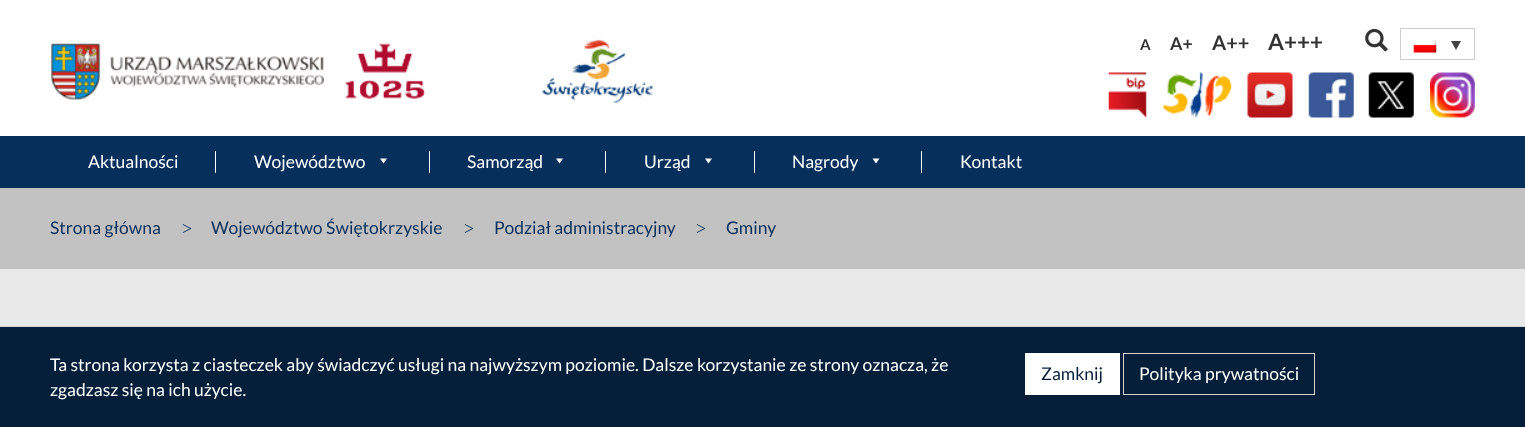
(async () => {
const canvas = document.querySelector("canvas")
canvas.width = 1525
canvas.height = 427
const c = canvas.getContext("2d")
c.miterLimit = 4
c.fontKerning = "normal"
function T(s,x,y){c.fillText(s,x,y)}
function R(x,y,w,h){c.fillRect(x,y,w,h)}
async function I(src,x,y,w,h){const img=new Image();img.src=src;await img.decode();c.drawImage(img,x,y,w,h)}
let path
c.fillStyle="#e8e8e8"
R(0,0,1525,427)
c.fillStyle="#fff"
R(0,0,1525,136)
await I("1.png",51,43,374,57)
await I("2.png",542,39,111,64)
c.font="bold 15px Lato"
c.fillStyle="#333"
T("A",1140,50)
c.font="bold 17.5px Lato"
T("A+",1170,50)
c.font="bold 20px Lato"
T("A++",1212,50)
c.font="bold 22.5px Lato"
T("A+++",1268,50)
await I("3.png",1365,28,23,24)
c.strokeStyle="#cdcdcd"
c.strokeRect(1400.5,28.5,74,31)
await I("4.png",1413,40,24,13)
c.fillStyle="#444"
path = new Path2D("M1451 41h10l-5 9z")
c.fill(path)
await I("5.png",1108,72,39,46)
await I("6.png",1162,72,70,46)
await I("7.png",1247,72,46,46)
await I("8.png",1308,72,46,46)
await I("9.png",1368,72,46,46)
await I("10.png",1430,72,45,46)
c.fillStyle="#072f5c"
R(0,136,1525,52)
c.fillStyle="#fff"
R(215,151,1,22)
c.font="17.5px Lato"
T("Aktualności",88,168)
R(429,151,1,22)
T("Województwo",254,168)
path = new Path2D("M387 158.5l-3.5 5l-3.5-5z")
c.fill(path)
R(605,151,1,22)
T("Samorząd",467,168)
path = new Path2D("M563 158.5l-3.5 5l-3.5-5z")
c.fill(path)
R(754,151,1,22)
T("Urząd",644,168)
path = new Path2D("M712 158.5l-3.5 5l-3.5-5z")
c.fill(path)
R(921,151,1,22)
T("Nagrody",792,168)
path = new Path2D("M879.5 158.5l-3.5 5l-3.5-5z")
c.fill(path)
T("Kontakt",960,168)
c.fillStyle="#c2c2c2"
R(0,188,1525,81)
c.fillStyle="#072f5c"
T("Strona główna",50,234)
c.font="300 22.5px Lato"
T(">",180,236)
c.font="17.5px Lato"
T("Województwo Świętokrzyskie",211,234)
c.font="300 22.5px Lato"
T(">",462,236)
c.font="17.5px Lato"
T("Podział administracyjny",494,234)
c.font="300 22.5px Lato"
T(">",694,236)
c.font="17.5px Lato"
T("Gminy",726,234)
c.fillStyle="#051e3a"
R(0,327,1525,100)
c.fillStyle="#d4d4d4"
R(0,326,1525,1)
c.fillStyle="#fff"
T("Ta strona korzysta z ciasteczek aby świadczyć usługi na najwyższym poziomie. Dalsze korzystanie ze strony oznacza, że",50,371)
T("zgadzasz się na ich użycie.",50,396)
R(1025,353,95,42)
c.fillStyle="#051e3a"
T("Zamknij",1041,380)
c.strokeStyle="#d4d4d4"
c.strokeRect(1123.5,353.5,191,41)
c.fillStyle="#fff"
T("Polityka prywatności",1139,380)
})()
